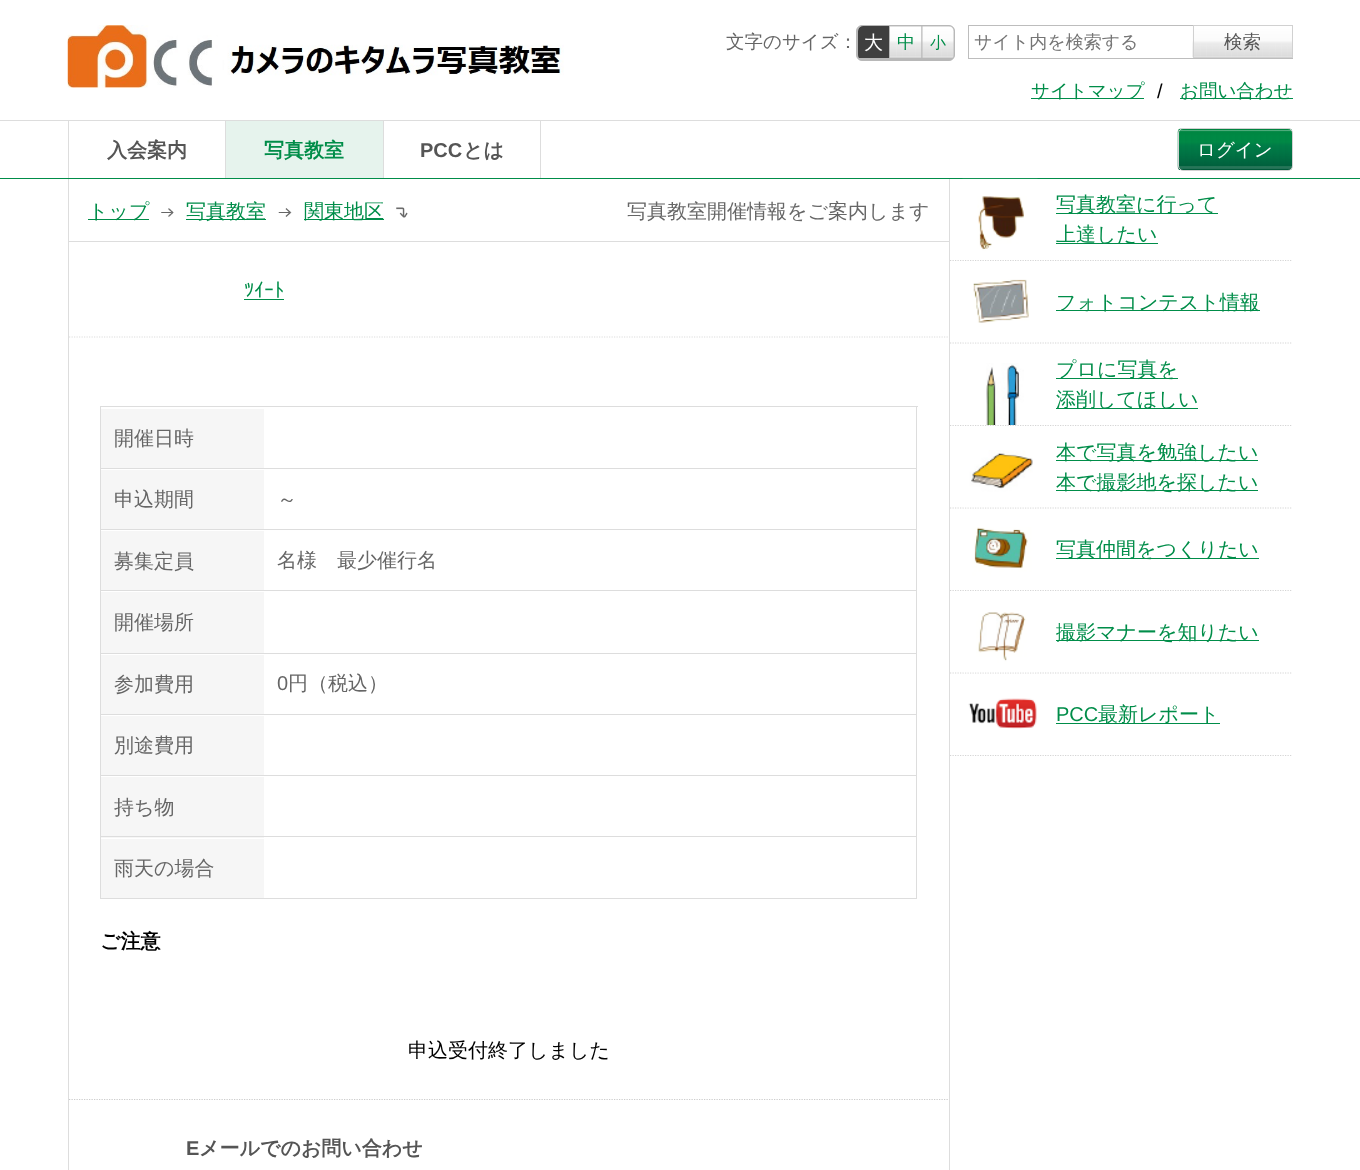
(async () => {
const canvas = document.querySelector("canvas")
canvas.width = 1360
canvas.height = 1170
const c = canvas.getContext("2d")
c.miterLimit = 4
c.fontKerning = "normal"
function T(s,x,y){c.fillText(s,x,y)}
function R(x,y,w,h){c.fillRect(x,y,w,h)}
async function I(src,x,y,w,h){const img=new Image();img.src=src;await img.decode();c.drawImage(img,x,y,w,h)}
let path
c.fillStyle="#fff"
R(0,0,1360,1170)
c.fillStyle="#008d49"
R(0,178,1360,1)
await I("1.png",67,25,497,63)
c.font="500 18.5px WenQuanYi Zen Hei"
c.fillStyle="#666"
T("文字のサイズ：",726,48)
c.fillStyle="#b8b8b8"
c.beginPath()
c.roundRect(856.5,25.5,98,35,5.5)
c.fill()
c.strokeStyle="#b8b8b8"
c.stroke()
c.save()
c.beginPath()
c.roundRect(858,26,96,34,5)
c.clip()
c.fillStyle="#3f3f3f"
c.beginPath()
c.roundRect(858,26,31,32,[5,0,0,0])
c.fill()
c.restore()
c.font="500 19px WenQuanYi Zen Hei"
c.fillStyle="#fff"
T("大",864,49)
await I("2.png",890,26,32,32)
c.font="500 18px WenQuanYi Zen Hei"
c.fillStyle="#008d49"
T("中",897,48)
await I("3.png",922,26,32,32)
c.font="500 16px WenQuanYi Zen Hei"
T("小",930,48)
c.strokeStyle="#bdbdbd"
c.strokeRect(968.5,25.5,324,33)
c.font="500 18px WenQuanYi Zen Hei"
c.fillStyle="#757575"
T("サイト内を検索する",974,48)
await I("4.png",1192,26,100,32)
c.strokeStyle="#d1d1d1"
c.strokeRect(1193.5,25.5,99,32)
c.font="500 18.5px WenQuanYi Zen Hei"
c.fillStyle="#555"
T("検索",1224,48)
c.fillStyle="#008d49"
R(1031,98,113,1)
T("サイトマップ",1031,97)
c.font="20px Liberation Sans"
c.fillStyle="#000"
T("/",1157,98)
c.fillStyle="#008d49"
R(1180,98,113,1)
c.font="500 18.5px WenQuanYi Zen Hei"
T("お問い合わせ",1180,97)
c.fillStyle="#ddd"
R(0,120,1360,1)
R(68,121,1,57)
R(225,121,1,57)
c.font="bold 20px WenQuanYi Zen Hei"
c.fillStyle="#555"
T("入会案内",107,157)
c.fillStyle="#e6f3ed"
R(226,121,157,57)
c.fillStyle="#ddd"
R(383,121,1,57)
c.fillStyle="#008d49"
T("写真教室",264,157)
c.fillStyle="#ddd"
R(540,121,1,57)
c.font="bold 20px Liberation Sans"
c.fillStyle="#555"
T("PCC",420,157)
c.font="bold 20px WenQuanYi Zen Hei"
T("とは",463,157)
await I("5.png",1177,128,116,42)
c.beginPath()
c.roundRect(1178.5,128.5,114,42,4.5)
c.stroke()
c.font="500 18.5px WenQuanYi Zen Hei"
c.fillStyle="#fff"
T("ログイン",1197,156)
c.fillStyle="#ddd"
R(949,179,1,991)
R(68,179,1,991)
R(69,241,880,1)
c.fillStyle="#008d49"
R(88,219,61,1)
c.font="500 20px WenQuanYi Zen Hei"
T("トップ",88,218)
await I("6.png",161,208,13,9)
R(186,219,80,1)
T("写真教室",186,218)
await I("7.png",278,208,14,9)
R(304,219,80,1)
T("関東地区",304,218)
await I("8.png",396,207,12,11)
c.fillStyle="#666"
T("写真教室開催情報をご案内します",627,218)
path = new Path2D("M69 337h880")
c.strokeStyle="#ddd"
c.lineWidth=1.2
c.setLineDash([1.25,1.25])
c.stroke(path)
c.font="20px IPAPGothic"
c.fillStyle="#008d49"
T("ﾂｲｰﾄ",244,297)
R(244,299,40,1)
c.fillStyle="#ddd"
R(100,406,818,1)
R(916,406,1,493)
R(100,406,1,493)
c.fillStyle="#f6f6f6"
R(101,409,163,59)
c.fillStyle="#ddd"
R(101,468,815,1)
c.font="500 20px WenQuanYi Zen Hei"
c.fillStyle="#666"
T("開催日時",114,445)
c.fillStyle="#f6f6f6"
R(101,470,163,59)
c.fillStyle="#ddd"
R(101,529,815,1)
c.fillStyle="#666"
T("申込期間",114,506)
T("～",277,506)
c.fillStyle="#f6f6f6"
R(101,531,163,59)
c.fillStyle="#ddd"
R(101,590,815,1)
c.fillStyle="#666"
T("募集定員",114,568)
T("名様　最少催行名",277,567)
c.fillStyle="#f6f6f6"
R(101,592,163,61)
c.fillStyle="#ddd"
R(101,653,815,1)
c.fillStyle="#666"
T("開催場所",114,629)
c.fillStyle="#f6f6f6"
R(101,655,163,59)
c.fillStyle="#ddd"
R(101,714,815,1)
c.fillStyle="#666"
T("参加費用",114,691)
c.font="20px Liberation Sans"
T("0",277,690)
c.font="500 20px WenQuanYi Zen Hei"
T("円（税込）",288,690)
c.fillStyle="#f6f6f6"
R(101,716,163,59)
c.fillStyle="#ddd"
R(101,775,815,1)
c.fillStyle="#666"
T("別途費用",114,752)
c.fillStyle="#f6f6f6"
R(101,777,163,61)
c.fillStyle="#ddd"
R(101,836,815,1)
c.fillStyle="#666"
T("持ち物",114,814)
c.fillStyle="#f6f6f6"
R(101,839,163,59)
c.fillStyle="#ddd"
R(101,898,815,1)
c.fillStyle="#666"
T("雨天の場合",114,875)
c.font="bold 20px WenQuanYi Zen Hei"
c.fillStyle="#000"
T("ご注意",100,948)
c.font="500 20px WenQuanYi Zen Hei"
T("申込受付終了しました",408,1057)
path = new Path2D("M69 1099.5h880")
c.strokeStyle="#ccc"
c.stroke(path)
c.font="bold 20px Liberation Sans"
c.fillStyle="#555"
T("E",186,1155)
c.font="bold 20px WenQuanYi Zen Hei"
T("メールでのお問い合わせ",199,1155)
path = new Path2D("M950 260.5h342.5")
c.strokeStyle="#d5d5d5"
c.stroke(path)
await I("9.png",962,178,76,82)
c.fillStyle="#008d49"
R(1056,213,162,1)
c.font="500 20px WenQuanYi Zen Hei"
T("写真教室に行って",1056,211)
R(1056,243,102,1)
T("上達したい",1056,241)
path = new Path2D("M950 343h342.5")
c.stroke(path)
await I("10.png",963,279,73,64)
R(1056,310,204,1)
T("フォトコンテスト情報",1056,309)
path = new Path2D("M950 425.5h342.5")
c.stroke(path)
await I("11.png",965,363,71,62)
R(1056,378,122,1)
T("プロに写真を",1056,376)
R(1056,408,142,1)
T("添削してほしい",1056,406)
path = new Path2D("M950 508h342.5")
c.stroke(path)
await I("12.png",963,450,73,58)
R(1056,460,202,1)
T("本で写真を勉強したい",1056,459)
R(1056,490,202,1)
T("本で撮影地を探したい",1056,489)
path = new Path2D("M950 590.5h342.5")
c.stroke(path)
await I("13.png",965,527,71,63)
R(1056,558,203,1)
T("写真仲間をつくりたい",1056,556)
path = new Path2D("M950 673h342.5")
c.stroke(path)
await I("14.png",963,612,73,61)
R(1056,640,203,1)
T("撮影マナーを知りたい",1056,639)
path = new Path2D("M950 755.5h342.5")
c.stroke(path)
await I("15.png",965,698,72,57)
c.font="20px Liberation Sans"
T("PCC",1056,721)
R(1056,723,164,1)
c.font="500 20px WenQuanYi Zen Hei"
T("最新レポート",1098,721)
})()
